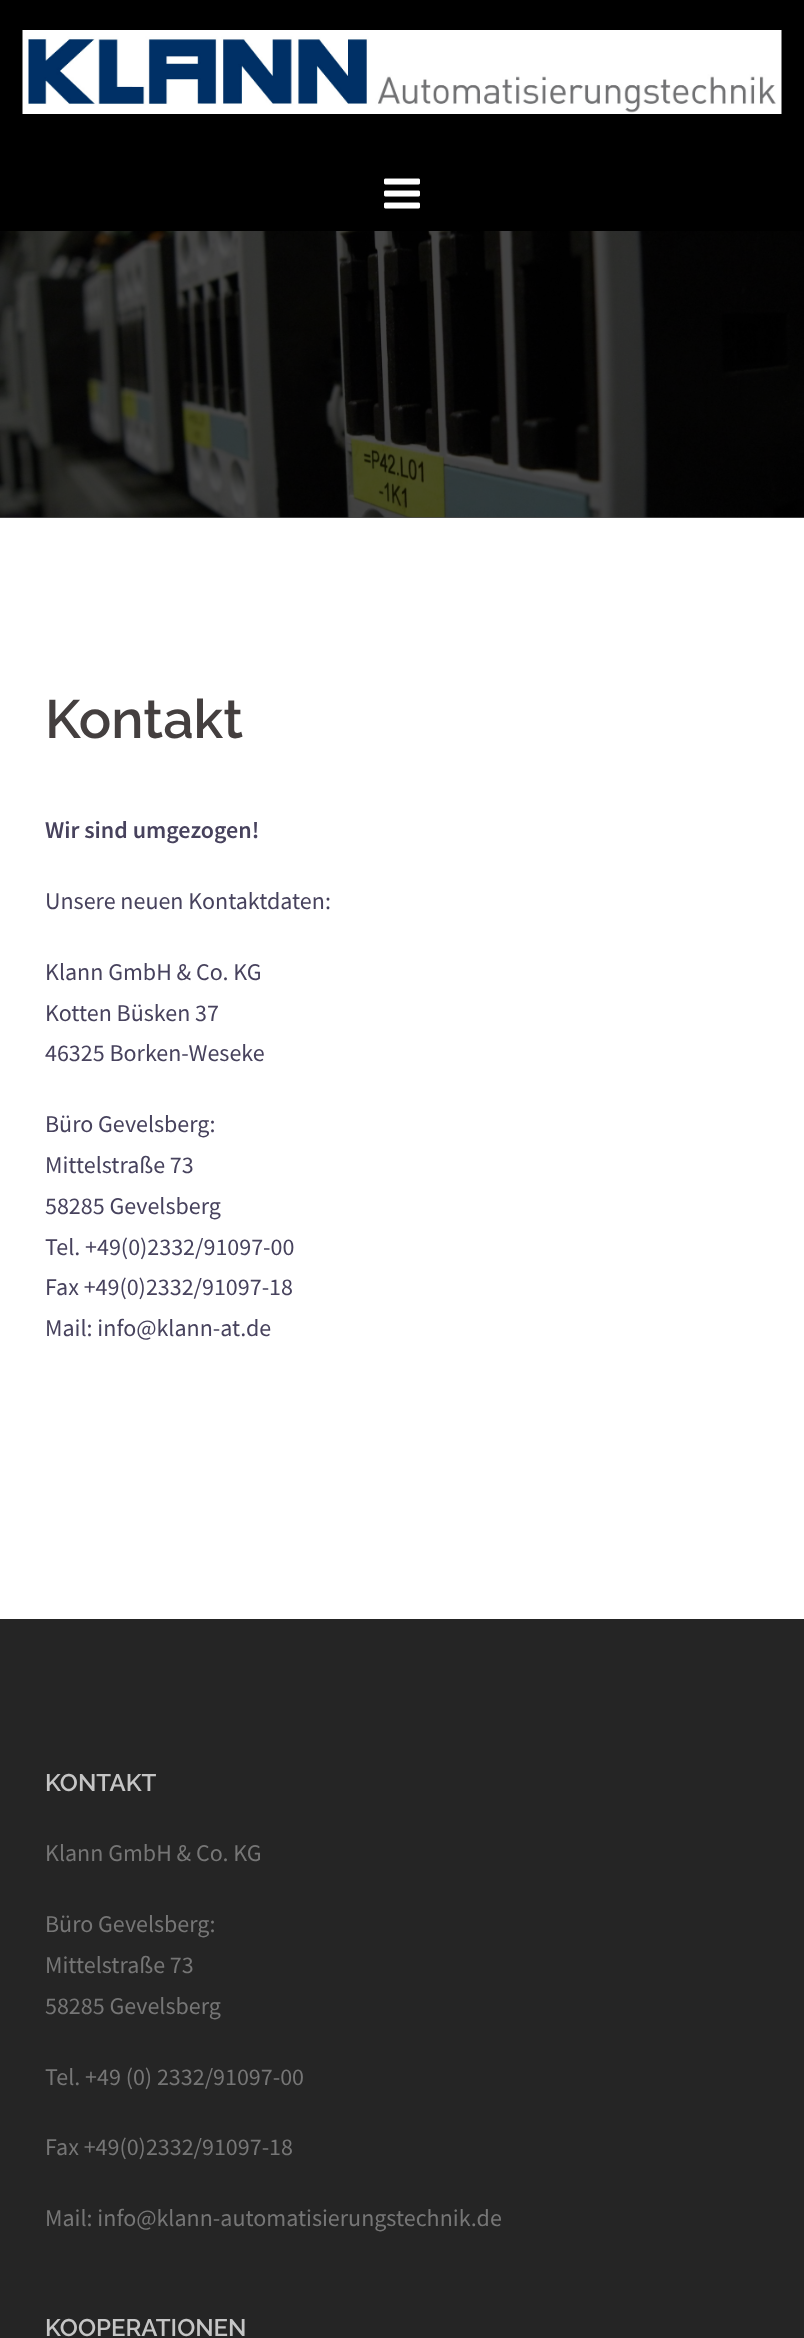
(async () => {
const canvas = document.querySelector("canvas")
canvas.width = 804
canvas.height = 2338
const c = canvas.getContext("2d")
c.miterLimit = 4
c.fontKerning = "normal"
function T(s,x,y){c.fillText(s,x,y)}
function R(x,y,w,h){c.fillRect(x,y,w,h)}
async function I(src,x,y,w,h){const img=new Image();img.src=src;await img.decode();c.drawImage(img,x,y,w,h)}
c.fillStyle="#fff"
R(0,0,804,2338)
c.fillStyle="#4d4d4d"
R(0,517,804,1)
c.fillStyle="#000"
R(0,0,804,231)
await I("1.png",22,30,760,84)
await I("2.png",384,178,36,31)
await I("3.png",0,231,804,287)
c.font="600 54px Raleway"
c.fillStyle="#443f3f"
T("Kontakt",45,738)
c.font="600 24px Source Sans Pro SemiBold"
c.fillStyle="#47425d"
T("Wir sind umgezogen!",45,838)
c.font="24px Source Sans Pro"
T("Unsere neuen Kontaktdaten:",45,909)
T("Klann GmbH & Co. KG",45,980)
T("Kotten Büsken 37",45,1021)
T("46325 Borken-Weseke",45,1061)
T("Büro Gevelsberg:",45,1132)
T("Mittelstraße 73",45,1173)
T("58285 Gevelsberg",45,1214)
T("Tel. +49(0)2332/91097-00",45,1255)
T("Fax +49(0)2332/91097-18",45,1295)
T("Mail: info@klann-at.de",45,1336)
c.fillStyle="#252525"
R(0,1619,804,719)
c.font="600 24px Raleway"
c.fillStyle="#c5c5c5"
T("KONTAKT",45,1791)
c.font="24px Source Sans Pro"
c.fillStyle="#767676"
T("Klann GmbH & Co. KG",45,1861)
T("Büro Gevelsberg:",45,1932)
T("Mittelstraße 73",45,1973)
T("58285 Gevelsberg",45,2014)
T("Tel. +49 (0) 2332/91097-00",45,2085)
T("Fax +49(0)2332/91097-18",45,2155)
T("Mail: info@klann-automatisierungstechnik.de",45,2226)
c.font="600 24px Raleway"
c.fillStyle="#c5c5c5"
T("KOOPERATIONEN",45,2336)
})()
